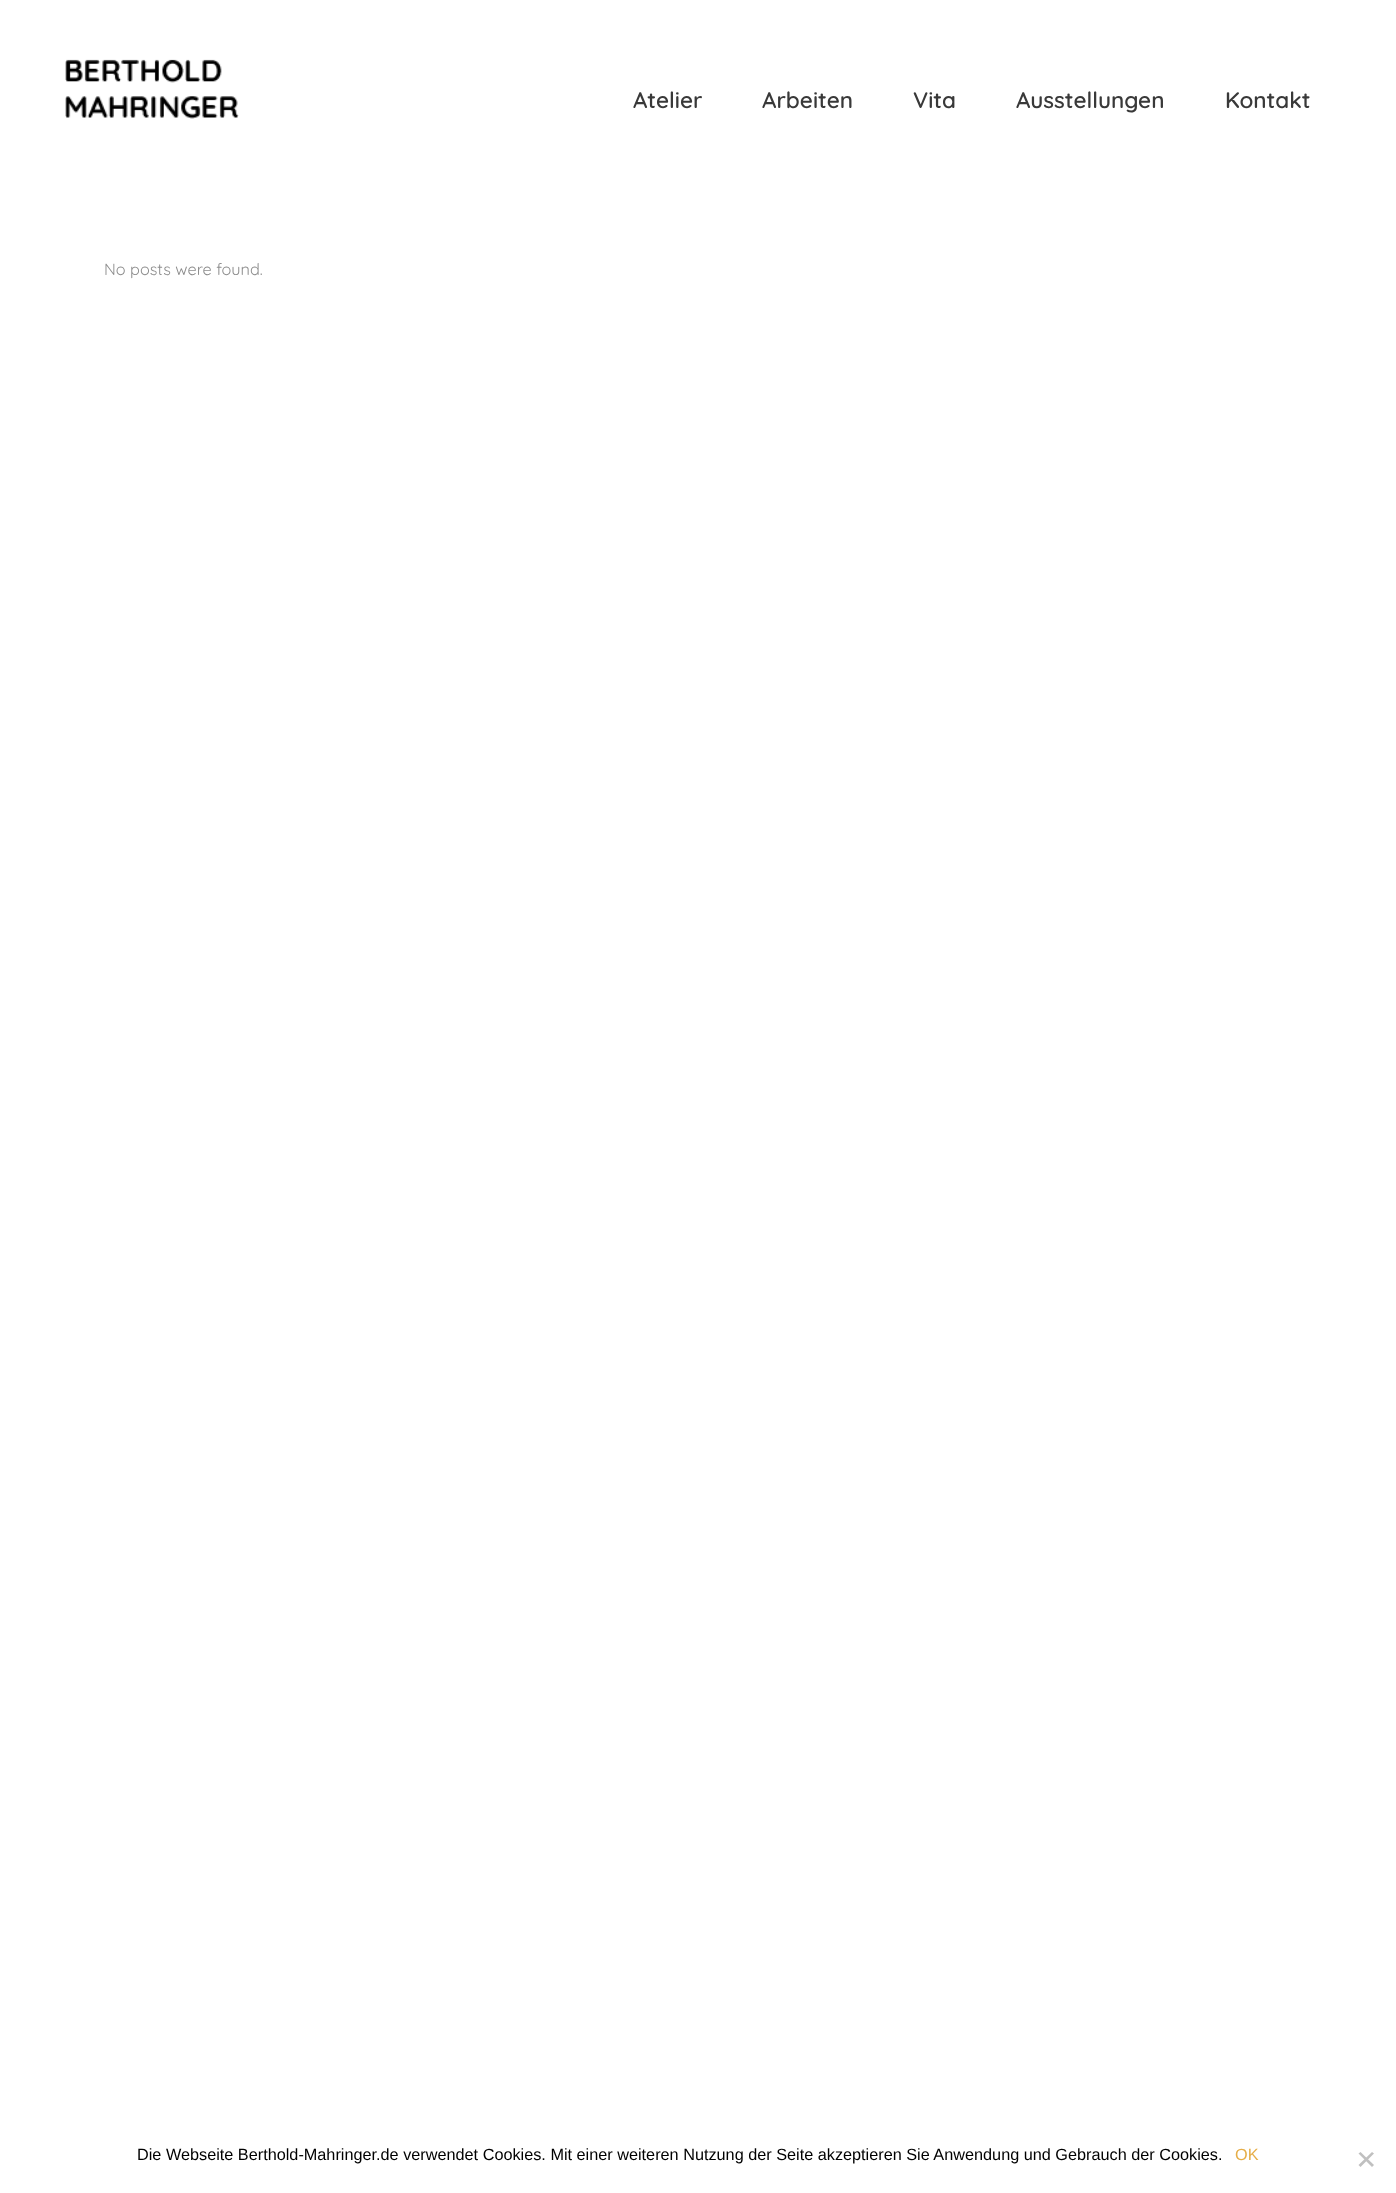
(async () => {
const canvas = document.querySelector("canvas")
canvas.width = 1396
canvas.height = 2193
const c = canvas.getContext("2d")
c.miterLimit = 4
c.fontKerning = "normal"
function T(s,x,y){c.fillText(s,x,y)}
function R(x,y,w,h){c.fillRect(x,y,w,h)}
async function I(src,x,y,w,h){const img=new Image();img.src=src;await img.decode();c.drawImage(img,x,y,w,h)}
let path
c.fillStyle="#fff"
R(0,0,1396,2193)
await I("1.png",65,59,174,60)
c.font="600 22.5px Quicksand"
c.fillStyle="#393939"
T("Atelier",633,108)
T("Arbeiten",762,108)
T("Vita",913,108)
T("Ausstellungen",1016,108)
T("Kontakt",1225,108)
c.font="16.25px Quicksand"
c.fillStyle="#8d8d8d"
T("No posts were found.",104,275)
c.font="16.25px Liberation Sans"
c.fillStyle="#000"
T("Die Webseite Berthold-Mahringer.de verwendet Cookies. Mit einer weiteren Nutzung der Seite akzeptieren Sie Anwendung und Gebrauch der Cookies.",137,2160)
c.fillStyle="#e6ae48"
T("OK",1235,2160)
c.fillStyle="#c0c0c0"
path = new Path2D("M1372 2152l2 1.5l-13.5 13.5l-2-2z")
c.fill(path)
path = new Path2D("M1358.5 2153.5l2-1.5l13.5 13l-2 2z")
c.fill(path)
})()
